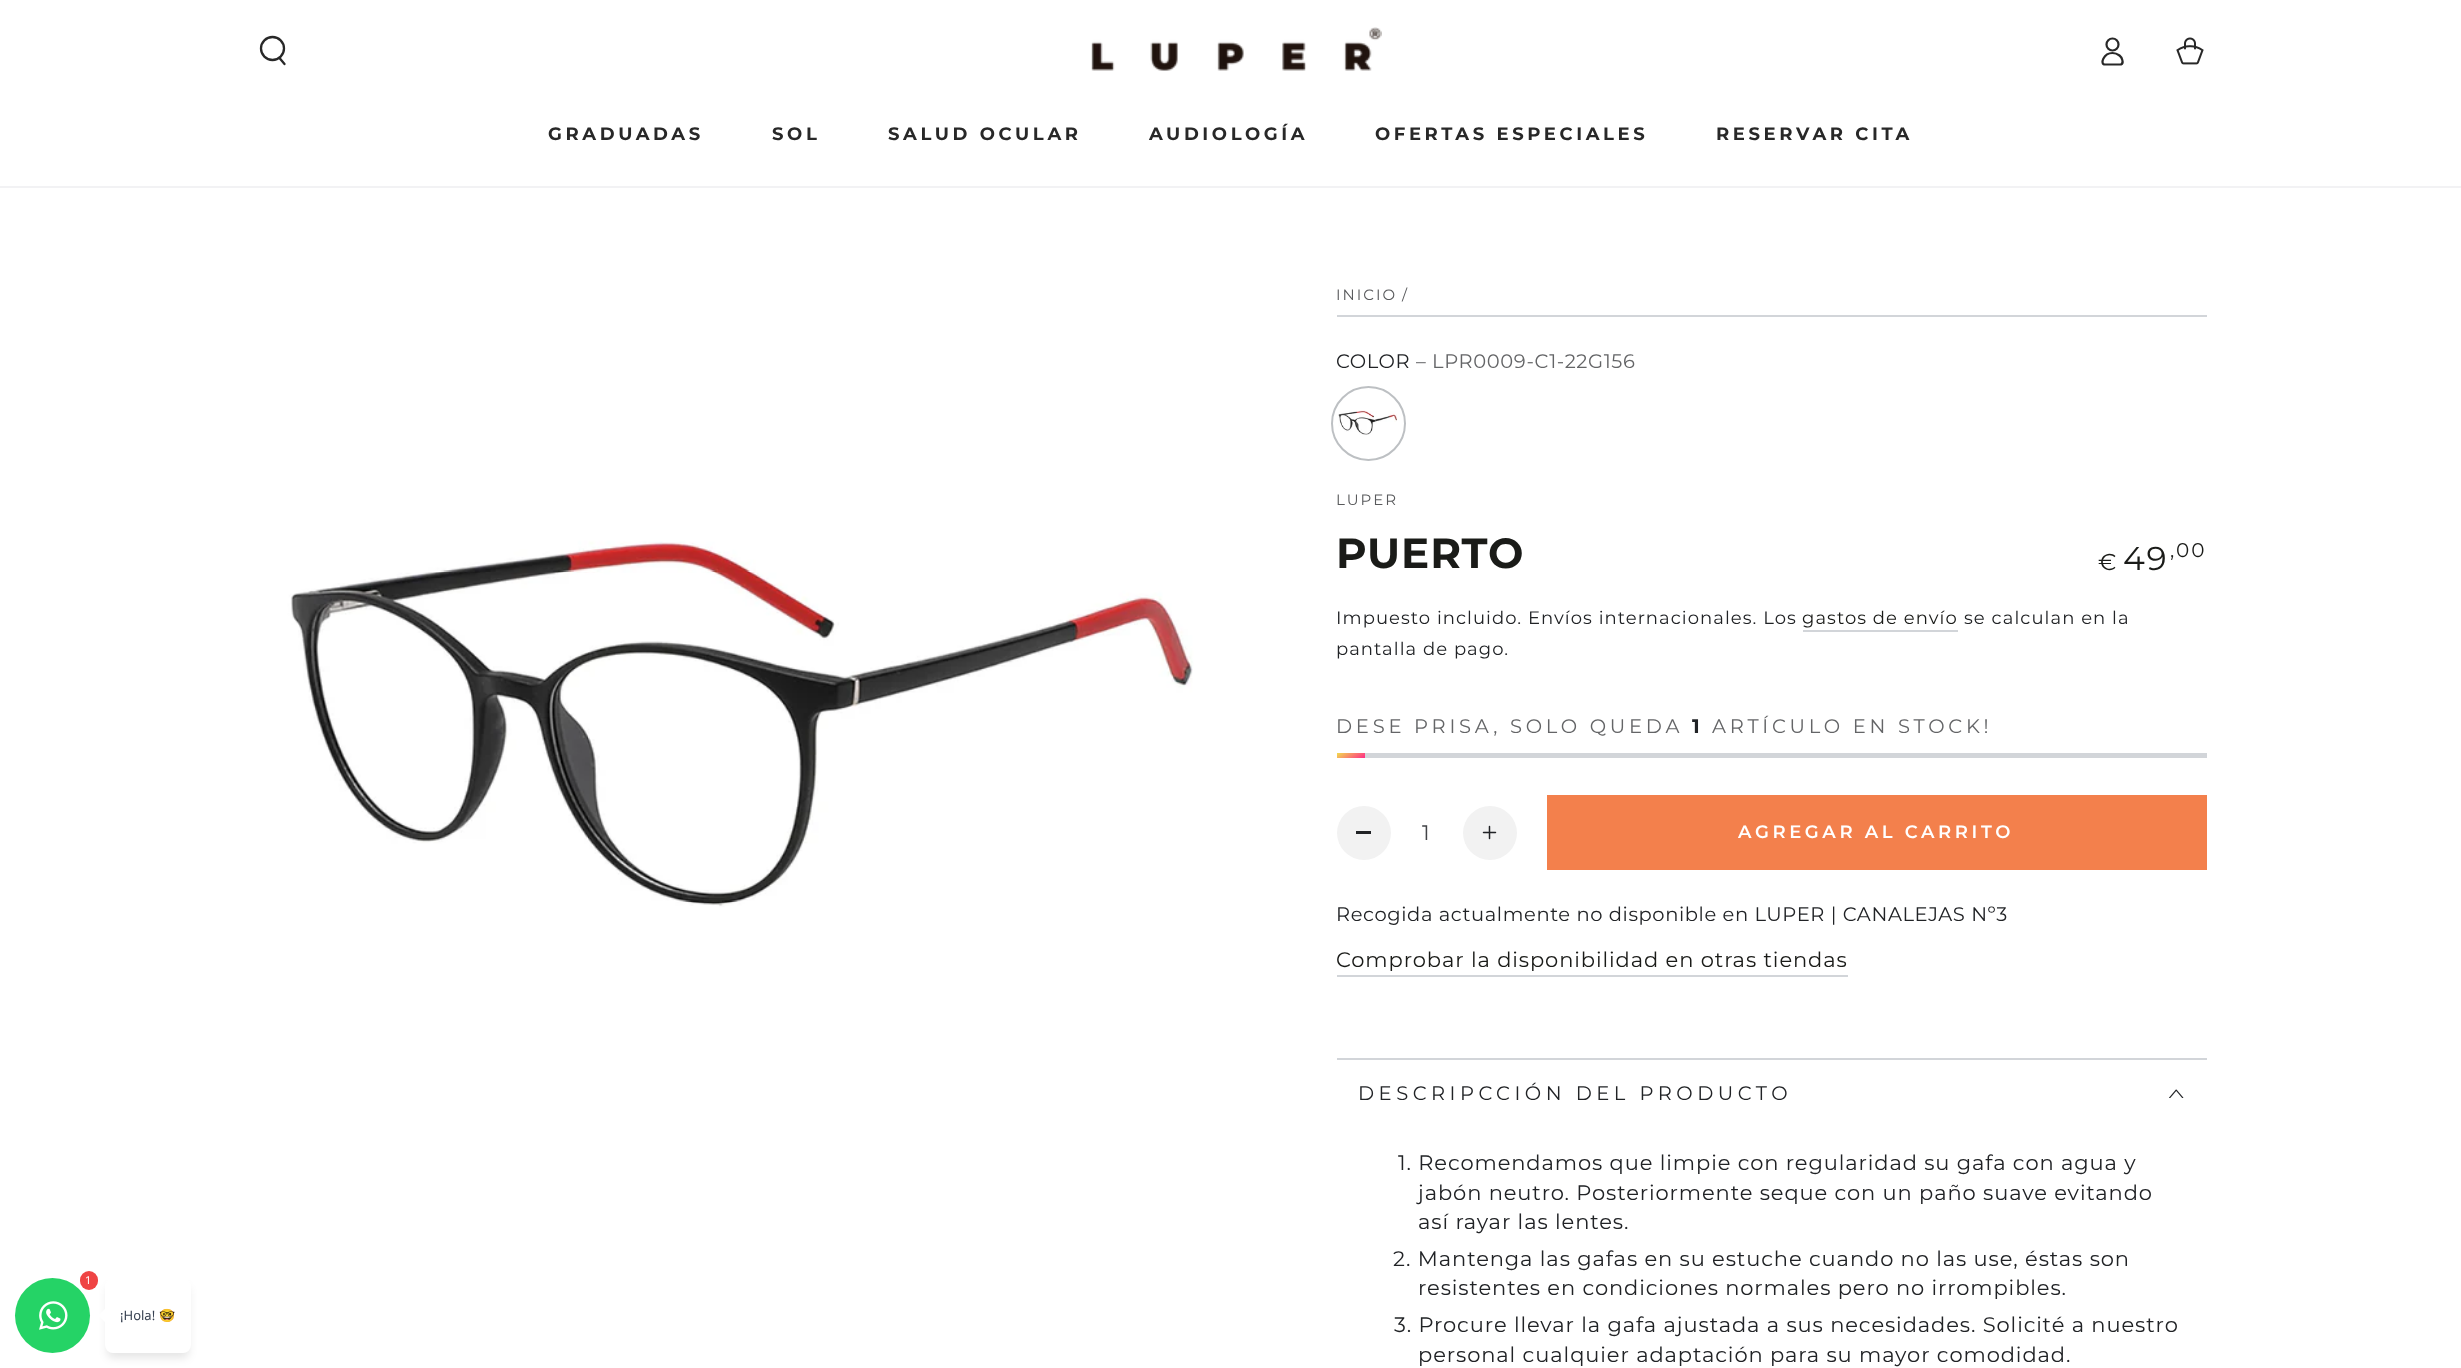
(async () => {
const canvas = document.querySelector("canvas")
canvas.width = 2461
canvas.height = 1368
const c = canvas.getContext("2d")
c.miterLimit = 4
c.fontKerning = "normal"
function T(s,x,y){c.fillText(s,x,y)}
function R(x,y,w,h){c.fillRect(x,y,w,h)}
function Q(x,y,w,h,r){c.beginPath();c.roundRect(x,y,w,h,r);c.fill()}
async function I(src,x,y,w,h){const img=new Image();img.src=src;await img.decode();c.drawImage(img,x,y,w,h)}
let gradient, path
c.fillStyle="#fff"
R(0,0,2461,1368)
c.fillStyle="#25d366"
c.beginPath()
c.arc(52.5,1315.5,37.5,0,7)
c.fill()
c.fillStyle="#0000001a"
c.filter="blur(4.5px)"
c.beginPath()
c.roundRect(107,1286,82,72,6)
c.fill()
c.filter="none"
c.fillStyle="#ef4444"
Q(80,1271,18,19,9)
c.font="11px Noto Sans"
c.fillStyle="#fff"
T("1",85,1284)
await I("1.png",39,1301,29,29)
Q(105,1278,86,75,8)
path = new Path2D("M98.5 1315.5l10.5-10.5l10.5 10.5l-10.5 10.5z")
c.fill(path)
c.font="13px Noto Sans"
c.fillStyle="#374151"
T("¡Hola!",120,1320)
c.font="13px Noto Color Emoji"
T("🤓",159,1320)
c.fillStyle="#f2f2f4"
path = new Path2D("M0 186v2h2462v-186v184z")
c.fill(path)
c.beginPath()
c.arc(272.5,48.5,11.5,0,7)
c.strokeStyle="#282828"
c.lineWidth=2.3
c.stroke()
path = new Path2D("M279.5 58l5 6")
c.lineCap="round"
c.stroke(path)
await I("2.png",1091,27,291,44)
path = new Path2D("M2112.5 53c-9 0-13 11.5-7.5 11.5h16c3.5-1.5 .5-7.5-1.5-9c-2-1.5-4.5-2.5-7-2.5z")
c.lineWidth=2.2
c.lineCap="butt"
c.stroke(path)
c.beginPath()
c.arc(2112.5,44.5,6,0,7)
c.stroke()
await I("3.png",2176,37,28,28)
c.letterSpacing="3.6px"
c.font="bold 18px Montserrat"
c.fillStyle="#282828"
T("GRADUADAS",548,140)
T("SOL",772,140)
T("SALUD OCULAR",888,140)
T("AUDIOLOGÍA",1149,140)
T("OFERTAS ESPECIALES",1375,140)
T("RESERVAR CITA",1716,140)
await I("4.png",257,240,975,975)
c.fillStyle="#d2d5d9"
R(1337,315,870,2)
c.letterSpacing="2px"
c.font="15px Montserrat"
c.fillStyle="#595a5c"
T("INICIO",1336,300)
T("/",1402,300)
c.letterSpacing="0.6px"
c.font="19.5px Montserrat"
c.fillStyle="#212326"
T("COLOR",1336,368)
c.fillStyle="#646567"
T("– LPR0009-C1-22G156",1416,368)
await I("5.png",1338,410,59,25)
c.beginPath()
c.arc(1368.5,423.5,36.5,0,7)
c.strokeStyle="#bdc0c3"
c.lineWidth=2
c.stroke()
c.letterSpacing="2px"
c.font="15px Montserrat"
c.fillStyle="#595a5c"
T("LUPER",1336,505)
c.letterSpacing="0.9px"
c.font="bold 42px Montserrat"
c.fillStyle="#1a1b18"
T("PUERTO",1336,568)
c.letterSpacing="2px"
c.font="23px Montserrat"
T("€",2098,570)
c.font="33px Montserrat"
T("49",2123,570)
c.font="20px Montserrat"
T(",00",2170,557)
c.letterSpacing="1.05px"
c.font="18px Montserrat"
c.fillStyle="#212326"
T("Impuesto incluido. Envíos internacionales. Los",1336,624)
c.fillStyle="#1a1b18"
T("gastos de envío",1802,624)
c.fillStyle="#d2d5d9"
R(1803,630,155,2)
c.fillStyle="#212326"
T("se calculan en la",1964,624)
T("pantalla de pago.",1336,655)
c.letterSpacing="3.75px"
c.font="19.5px Montserrat"
c.fillStyle="#646567"
T("DESE PRISA, SOLO QUEDA",1336,733)
c.font="bold 19.5px Montserrat"
c.fillStyle="#212326"
T("1",1692,733)
c.font="19.5px Montserrat"
c.fillStyle="#646567"
T("ARTÍCULO EN STOCK!",1712,733)
c.fillStyle="#d2d5d9"
R(1365,753,842,5)
gradient = c.createLinearGradient(1356,763,1345,747)
gradient.addColorStop(0,"#ff3484")
gradient.addColorStop(1,"#f1e04d")
c.fillStyle = gradient
R(1337,753,28,5)
c.fillStyle="#f2f2f2"
c.beginPath()
c.arc(1364,833,27,0,7)
c.fill()
c.fillStyle="#212326"
R(1356,831,15,3)
c.letterSpacing="0px"
c.font="21px Montserrat"
c.fillStyle="#424447"
T("1",1422,840)
c.fillStyle="#f2f2f2"
c.beginPath()
c.arc(1490,833,27,0,7)
c.fill()
await I("6.png",1482,825,15,15)
c.fillStyle="#f3804c"
R(1547,795,660,75)
c.letterSpacing="3.6px"
c.font="600 18px Montserrat"
c.fillStyle="#fff"
T("AGREGAR AL CARRITO",1738,838)
c.letterSpacing="0.6px"
c.font="19.5px Montserrat"
c.fillStyle="#212326"
T("Recogida actualmente no disponible en LUPER | CANALEJAS Nº3",1336,921)
c.fillStyle="#d2d5d9"
R(1337,975,511,2)
c.letterSpacing="0.9px"
c.font="21px Montserrat"
c.fillStyle="#1a1b18"
T("Comprobar la disponibilidad en otras tiendas",1336,967)
c.fillStyle="#d2d5d9"
R(1337,1058,870,2)
c.letterSpacing="4.5px"
c.font="19.5px Montserrat"
c.fillStyle="#212326"
T("DESCRIPCCIÓN DEL PRODUCTO",1358,1100)
await I("7.png",2169,1089,15,9)
c.letterSpacing="0.9px"
c.font="21px Montserrat"
T("1. Recomendamos que limpie con regularidad su gafa con agua y",1398,1170)
T("jabón neutro. Posteriormente seque con un paño suave evitando",1418,1200)
T("así rayar las lentes.",1418,1229)
T("2. Mantenga las gafas en su estuche cuando no las use, éstas son",1393,1266)
T("resistentes en condiciones normales pero no irrompibles.",1418,1295)
T("3. Procure llevar la gafa ajustada a sus necesidades. Solicité a nuestro",1394,1332)
T("personal cualquier adaptación para su mayor comodidad.",1418,1362)
})()
